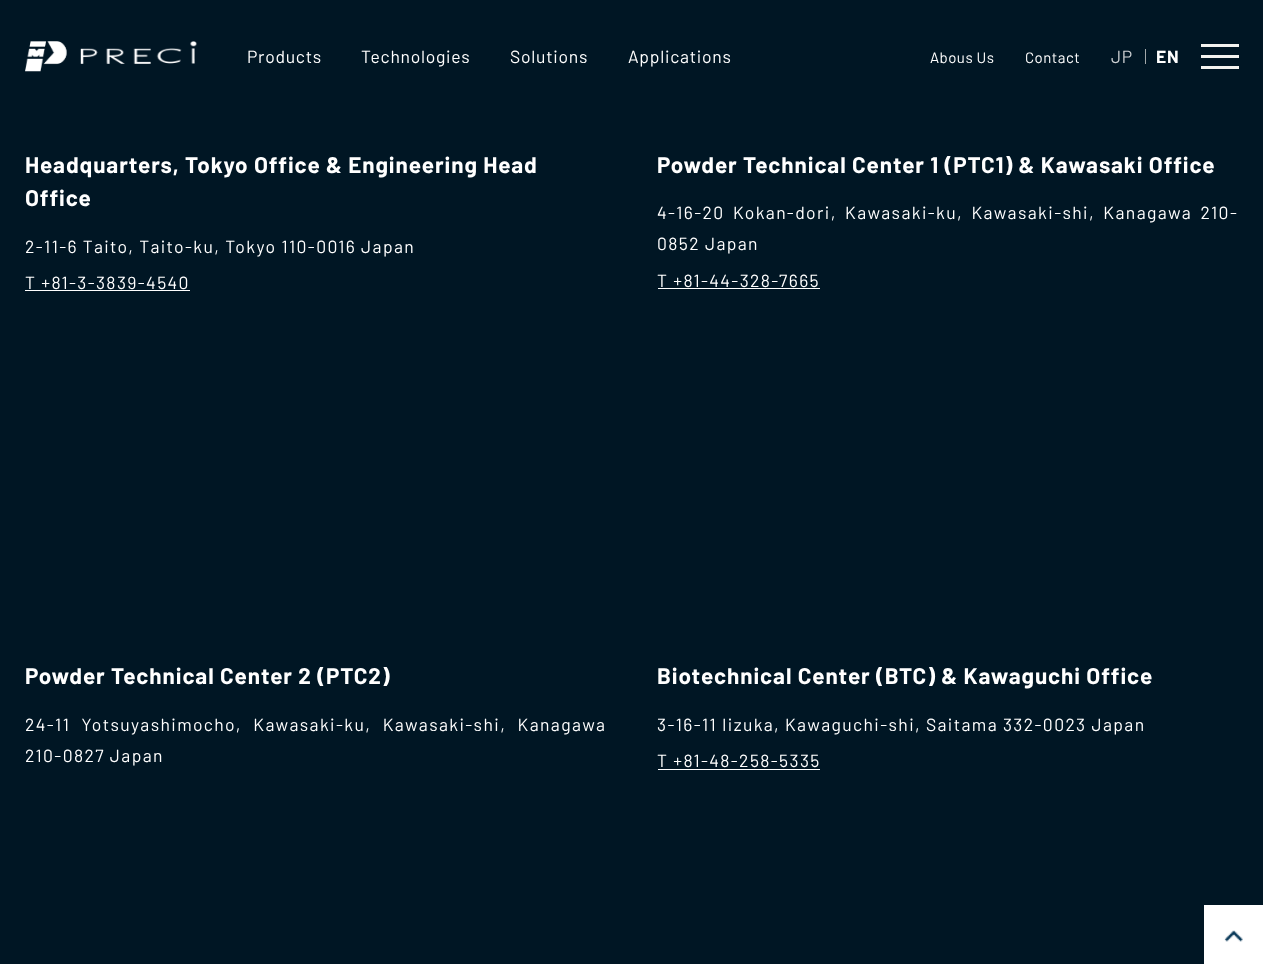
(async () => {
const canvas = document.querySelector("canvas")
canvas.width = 1263
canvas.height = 964
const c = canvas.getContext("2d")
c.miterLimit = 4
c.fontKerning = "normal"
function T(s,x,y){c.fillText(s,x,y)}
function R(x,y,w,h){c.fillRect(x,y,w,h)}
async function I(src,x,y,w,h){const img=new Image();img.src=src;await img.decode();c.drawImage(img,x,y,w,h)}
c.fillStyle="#001624"
R(0,0,1263,964)
await I("1.png",25,41,172,31)
c.letterSpacing="0.75px"
c.font="17.5px Barlow"
c.fillStyle="#fff"
T("Products",247,63)
T("Technologies",361,63)
T("Solutions",510,63)
T("Applications",628,63)
c.letterSpacing="0.5px"
c.font="15px Barlow"
T("Abous Us",930,63)
T("Contact",1025,63)
c.letterSpacing="0.75px"
c.font="17.5px Barlow"
c.fillStyle="#ccd0d3"
T("JP",1111,63)
c.fillStyle="#a3a8aa"
R(1145,49,1,15)
c.font="bold 17.5px Barlow"
c.fillStyle="#fff"
T("EN",1156,63)
c.fillStyle="#f3f3f0"
R(1201,55,38,3)
R(1201,44,38,3)
R(1201,66,38,3)
c.letterSpacing="0.9px"
c.font="bold 22.5px Barlow"
c.fillStyle="#fff"
T("Headquarters, Tokyo Office & Engineering Head",25,173)
T("Office",25,206)
c.letterSpacing="1.4px"
c.font="17.5px Barlow"
T("2-11-6 Taito, Taito-ku, Tokyo 110-0016 Japan",25,253)
T("T +81-3-3839-4540",25,289)
R(25,290,165,1)
c.letterSpacing="0.9px"
c.font="bold 22.5px Barlow"
T("Powder Technical Center 1 (PTC1) & Kawasaki Office",657,173)
c.letterSpacing="1.4px"
c.wordSpacing="3.5px"
c.font="17.5px Barlow"
T("4-16-20 Kokan-dori, Kawasaki-ku, Kawasaki-shi, Kanagawa 210-",657,219)
c.wordSpacing="0px"
T("0852 Japan",657,250)
T("T +81-44-328-7665",657,287)
R(658,288,162,1)
c.letterSpacing="0.9px"
c.font="bold 22.5px Barlow"
T("Powder Technical Center 2 (PTC2)",25,684)
c.letterSpacing="1.4px"
c.wordSpacing="6.5px"
c.font="17.5px Barlow"
T("24-11 Yotsuyashimocho, Kawasaki-ku, Kawasaki-shi, Kanagawa",25,731)
c.wordSpacing="0px"
T("210-0827 Japan",25,762)
c.letterSpacing="0.9px"
c.font="bold 22.5px Barlow"
T("Biotechnical Center (BTC) & Kawaguchi Office",657,684)
c.letterSpacing="1.4px"
c.font="17.5px Barlow"
T("3-16-11 Iizuka, Kawaguchi-shi, Saitama 332-0023 Japan",657,731)
T("T +81-48-258-5335",657,767)
R(658,769,162,1)
R(1204,905,59,59)
await I("2.png",1224,930,19,12)
})()
